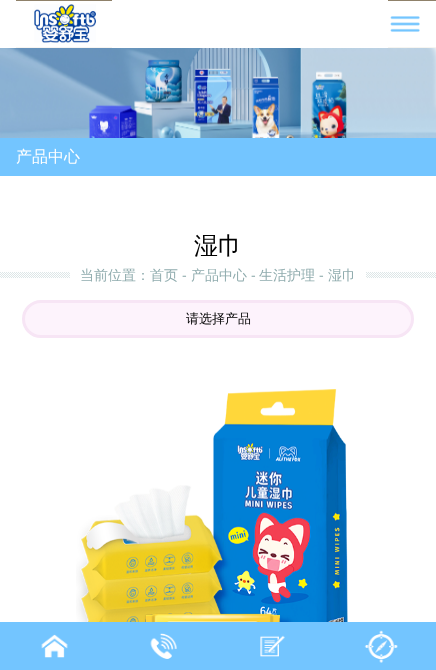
(async () => {
const canvas = document.querySelector("canvas")
canvas.width = 436
canvas.height = 670
const c = canvas.getContext("2d")
c.miterLimit = 4
c.fontKerning = "normal"
function T(s,x,y){c.fillText(s,x,y)}
function R(x,y,w,h){c.fillRect(x,y,w,h)}
async function I(src,x,y,w,h){const img=new Image();img.src=src;await img.decode();c.drawImage(img,x,y,w,h)}
c.fillStyle="#fff"
R(0,0,436,670)
await I("1.png",16,0,96,48)
await I("2.png",388,0,48,48)
await I("3.png",0,48,436,90)
c.fillStyle="#73c5ff"
R(0,138,436,38)
c.font="500 16px WenQuanYi Zen Hei"
c.fillStyle="#fff"
T("产品中心",16,162)
c.font="500 24px WenQuanYi Zen Hei"
c.fillStyle="#000"
T("湿巾",194,254)
await I("4.png",0,272,436,6)
c.fillStyle="#fff"
R(70,272,296,6)
c.font="500 14px WenQuanYi Zen Hei"
c.fillStyle="#90acae"
T("当前位置：首页",80,280)
c.font="14px Liberation Sans"
T("-",182,280)
c.font="500 14px WenQuanYi Zen Hei"
T("产品中心",191,280)
c.font="14px Liberation Sans"
T("-",251,280)
c.font="500 14px WenQuanYi Zen Hei"
T("生活护理",259,280)
c.font="14px Liberation Sans"
T("-",319,280)
c.font="500 14px WenQuanYi Zen Hei"
T("湿巾",328,280)
c.fillStyle="#fdf3fc"
c.beginPath()
c.roundRect(23.5,301.5,389,35,17.5)
c.fill()
c.strokeStyle="#f7e5f5"
c.lineWidth=3
c.stroke()
c.font="500 13px WenQuanYi Zen Hei"
c.fillStyle="#000"
T("请选择产品",186,323)
await I("5.png",76,389,272,233)
c.fillStyle="#73c5ff"
R(0,622,436,48)
await I("6.png",41,634,27,24)
await I("7.png",150,633,27,26)
await I("8.png",260,635,25,22)
await I("9.png",364,630,34,33)
})()
